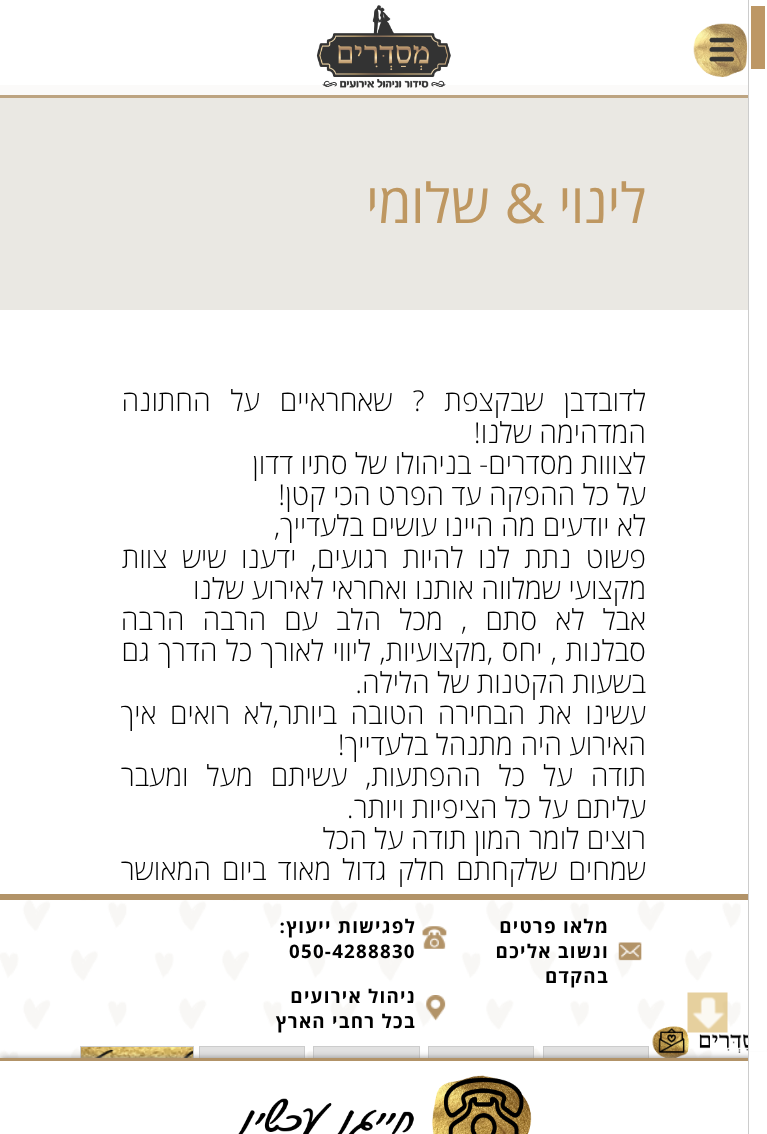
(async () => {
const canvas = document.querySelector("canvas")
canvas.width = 767
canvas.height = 1134
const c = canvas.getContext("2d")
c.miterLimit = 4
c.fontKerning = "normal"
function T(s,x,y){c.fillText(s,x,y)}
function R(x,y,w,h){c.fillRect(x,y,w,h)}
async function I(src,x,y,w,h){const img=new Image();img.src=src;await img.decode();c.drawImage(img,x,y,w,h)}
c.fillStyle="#fff"
R(0,0,767,1134)
await I("4.png",0,900,741,158)
await I("8.png",652,1026,96,32)
c.fillStyle="#e1e1e1"
R(544,1047,104,11)
c.strokeStyle="#ccc"
c.strokeRect(543.5,1046.5,105,44)
R(429,1047,104,11)
c.strokeRect(428.5,1046.5,105,44)
R(314,1047,105,11)
c.strokeRect(313.5,1046.5,106,44)
R(200,1047,104,11)
c.strokeRect(199.5,1046.5,105,44)
await I("9.png",81,1047,112,11)
c.strokeRect(80.5,1046.5,113,43)
c.fillStyle="#888"
c.filter="blur(3px)"
c.beginPath()
c.rect(0,1058,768,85)
c.fill()
c.filter="none"
c.fillStyle="#fff"
R(749,1052,18,82)
c.fillStyle="#ccc"
R(748,0,1,1134)
c.fillStyle="#bd9765"
R(751,6,14,63)
c.fillStyle="#fbfaf9"
R(0,85,748,10)
await I("1.png",316,5,135,83)
c.fillStyle="#bda481"
R(0,95,748,3)
await I("2.png",693,23,55,55)
c.fillStyle="#eae8e3"
R(0,98,748,212)
c.direction="rtl"
c.font="55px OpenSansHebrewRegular"
c.fillStyle="#be9761"
T("לינוי & שלומי",646,223)
c.wordSpacing="12.5px"
c.font="300 28.75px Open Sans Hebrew"
c.fillStyle="#000"
T("לדובדבן שבקצפת ? שאחראיים על החתונה",646,411)
c.wordSpacing="0px"
T("המדהימה שלנו!",646,443)
T("לצווות מסדרים- בניהולו של סתיו דדון",646,474)
T("על כל ההפקה עד הפרט הכי קטן!",646,505)
T("לא יודעים מה היינו עושים בלעדייך,",646,536)
c.wordSpacing="7px"
T("פשוט נתת לנו להיות רגועים, ידענו שיש צוות",646,568)
c.wordSpacing="0px"
T("מקצועי שמלווה אותנו ואחראי לאירוע שלנו",646,599)
c.wordSpacing="10.75px"
T("אבל לא סתם , מכל הלב עם הרבה הרבה",646,630)
c.wordSpacing="1px"
T("סבלנות , יחס ,מקצועיות, ליווי לאורך כל הדרך גם",646,661)
c.wordSpacing="0px"
T("בשעות הקטנות של הלילה.",646,693)
c.wordSpacing="6px"
T("עשינו את הבחירה הטובה ביותר,לא רואים איך",646,724)
c.wordSpacing="0px"
T("האירוע היה מתנהל בלעדייך!",646,755)
c.wordSpacing="10.5px"
T("תודה על כל ההפתעות, עשיתם מעל ומעבר",646,786)
c.wordSpacing="0px"
T("עליתם על כל הציפיות ויותר.",646,818)
T("רוצים לומר המון תודה על הכל",646,849)
c.wordSpacing="3.75px"
T("שמחים שלקחתם חלק גדול מאוד ביום המאושר",646,880)
await I("3.png",687,992,41,41)
c.fillStyle="#b29368"
R(0,894,748,6)
await I("5.png",618,942,24,19)
c.letterSpacing="1.25px"
c.wordSpacing="0px"
c.font="bold 18.75px Open Sans Hebrew"
c.fillStyle="#000"
T("מלאו פרטים",609,933)
T("ונשוב אליכם",609,958)
T("בהקדם",609,983)
await I("6.png",422,926,25,23)
T("לפגישות ייעוץ:",416,933)
c.direction="ltr"
T("050-4288830",289,958)
await I("7.png",426,995,20,26)
c.direction="rtl"
T("ניהול אירועים",416,1003)
T("בכל רחבי הארץ",416,1028)
c.fillStyle="#fff"
R(0,1061,748,73)
await I("10.png",238,1075,294,59)
c.fillStyle="#b29368"
R(0,1058,748,3)
})()
